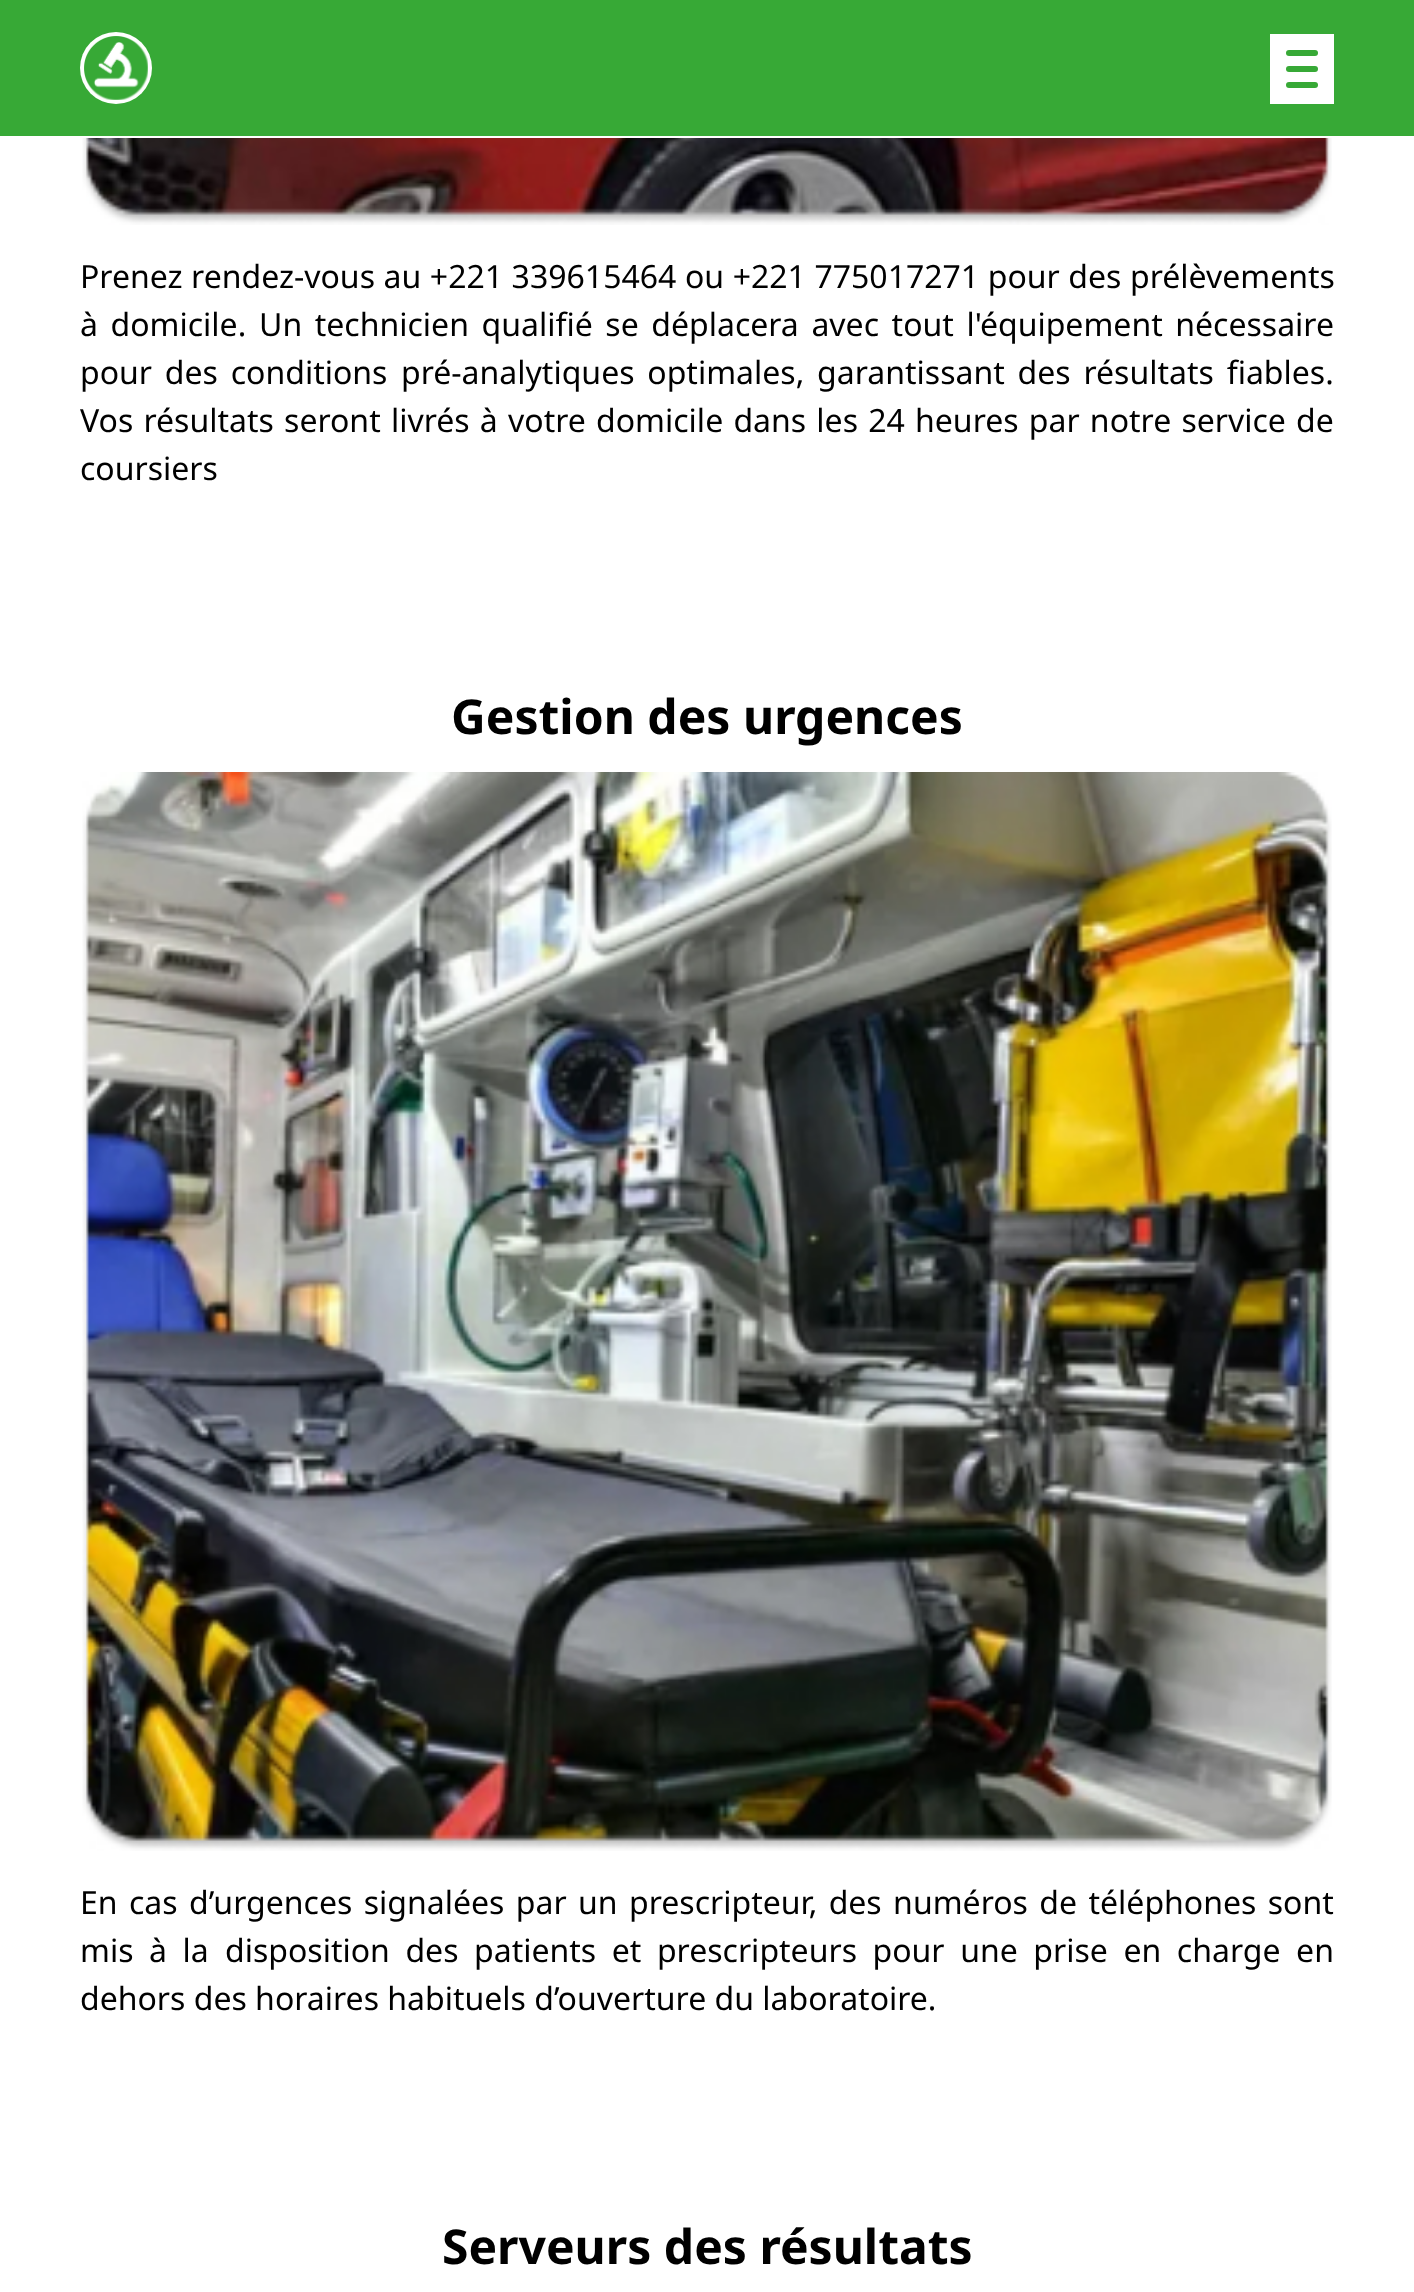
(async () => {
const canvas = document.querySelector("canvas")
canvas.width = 1414
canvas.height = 2292
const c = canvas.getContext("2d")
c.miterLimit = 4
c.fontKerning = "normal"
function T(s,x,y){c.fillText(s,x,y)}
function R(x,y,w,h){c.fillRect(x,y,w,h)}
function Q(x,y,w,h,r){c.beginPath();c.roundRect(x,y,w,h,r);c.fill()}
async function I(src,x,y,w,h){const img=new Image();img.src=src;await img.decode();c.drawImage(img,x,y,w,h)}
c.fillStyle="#fff"
R(0,0,1414,2292)
c.fillStyle="#37a936"
R(0,0,1414,136)
c.fillStyle="#fff"
c.beginPath()
c.arc(116,68,36,0,7)
c.fill()
await I("1.png",84,36,64,64)
R(1270,34,64,70)
c.fillStyle="#37a936"
Q(1286,50,32,6,3)
Q(1286,66,32,6,3)
Q(1286,82,32,6,3)
await I("2.png",82,138,1250,87)
c.wordSpacing="0.25px"
c.font="32px Noto Sans"
c.fillStyle="#000"
T("Prenez rendez-vous au +221 339615464 ou +221 775017271 pour des prélèvements",80,288)
c.wordSpacing="4.25px"
T("à domicile.",80,336)
T("Un technicien qualifié se déplacera avec tout l'équipement nécessaire",259,336)
c.wordSpacing="4.5px"
T("pour des conditions",80,384)
T("pré-analytiques optimales, garantissant des résultats fiables.",401,384)
c.wordSpacing="1.9px"
T("Vos résultats seront livrés à votre domicile dans les 24 heures par notre service",80,432)
c.wordSpacing="0px"
T("de",1296,432)
T("coursiers",80,480)
c.font="bold 48px Noto Sans"
T("Gestion des urgences",451,734)
await I("3.png",82,772,1250,1079)
c.wordSpacing="3.1px"
c.font="32px Noto Sans"
T("En cas d’urgences signalées par un prescripteur, des numéros de téléphones sont",80,1914)
c.wordSpacing="7.25px"
T("mis à la",80,1962)
T("disposition des patients et prescripteurs pour une prise en charge en",225,1962)
c.wordSpacing="0px"
T("dehors des horaires habituels d’ouverture du laboratoire.",80,2010)
c.font="bold 48px Noto Sans"
T("Serveurs des résultats",442,2264)
})()
